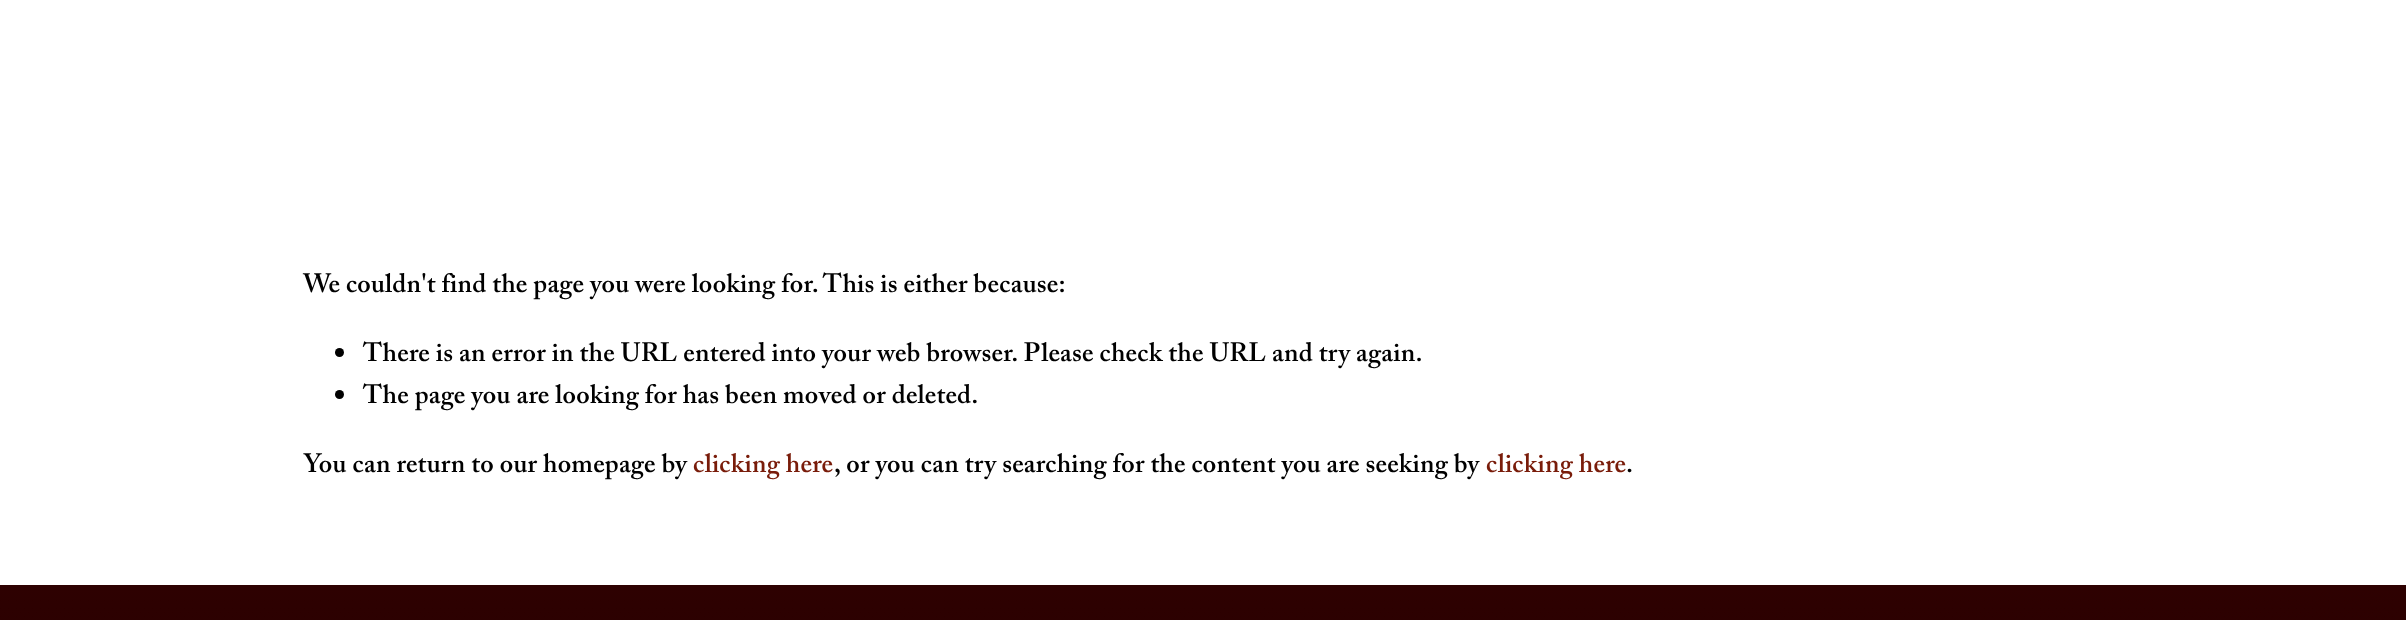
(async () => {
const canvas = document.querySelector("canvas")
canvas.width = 2406
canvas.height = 620
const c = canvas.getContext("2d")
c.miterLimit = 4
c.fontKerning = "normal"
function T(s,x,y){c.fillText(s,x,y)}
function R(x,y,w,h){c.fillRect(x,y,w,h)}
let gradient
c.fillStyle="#fff"
R(0,0,2406,620)
c.letterSpacing="0.25px"
c.font="600 26.4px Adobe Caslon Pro"
c.fillStyle="#000"
T("We couldn't find the page you were looking for. This is either because:",303,292)
c.beginPath()
c.arc(339.5,352.5,4.5,0,7)
c.fill()
T("There is an error in the URL entered into your web browser. Please check the URL and try again.",363,361)
c.beginPath()
c.arc(339.5,394.5,4.5,0,7)
c.fill()
T("The page you are looking for has been moved or deleted.",363,403)
T("You can return to our homepage by",303,472)
c.fillStyle="#791c0a"
T("clicking here",693,472)
c.fillStyle="#000"
T(", or you can try searching for the content you are seeking by",834,472)
c.fillStyle="#791c0a"
T("clicking here",1486,472)
c.fillStyle="#000"
T(".",1626,472)
gradient = c.createLinearGradient(1203,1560,1203,585)
gradient.addColorStop(0,"#000")
gradient.addColorStop(1,"#2e0101")
c.fillStyle = gradient
R(0,585,2406,35)
})()
